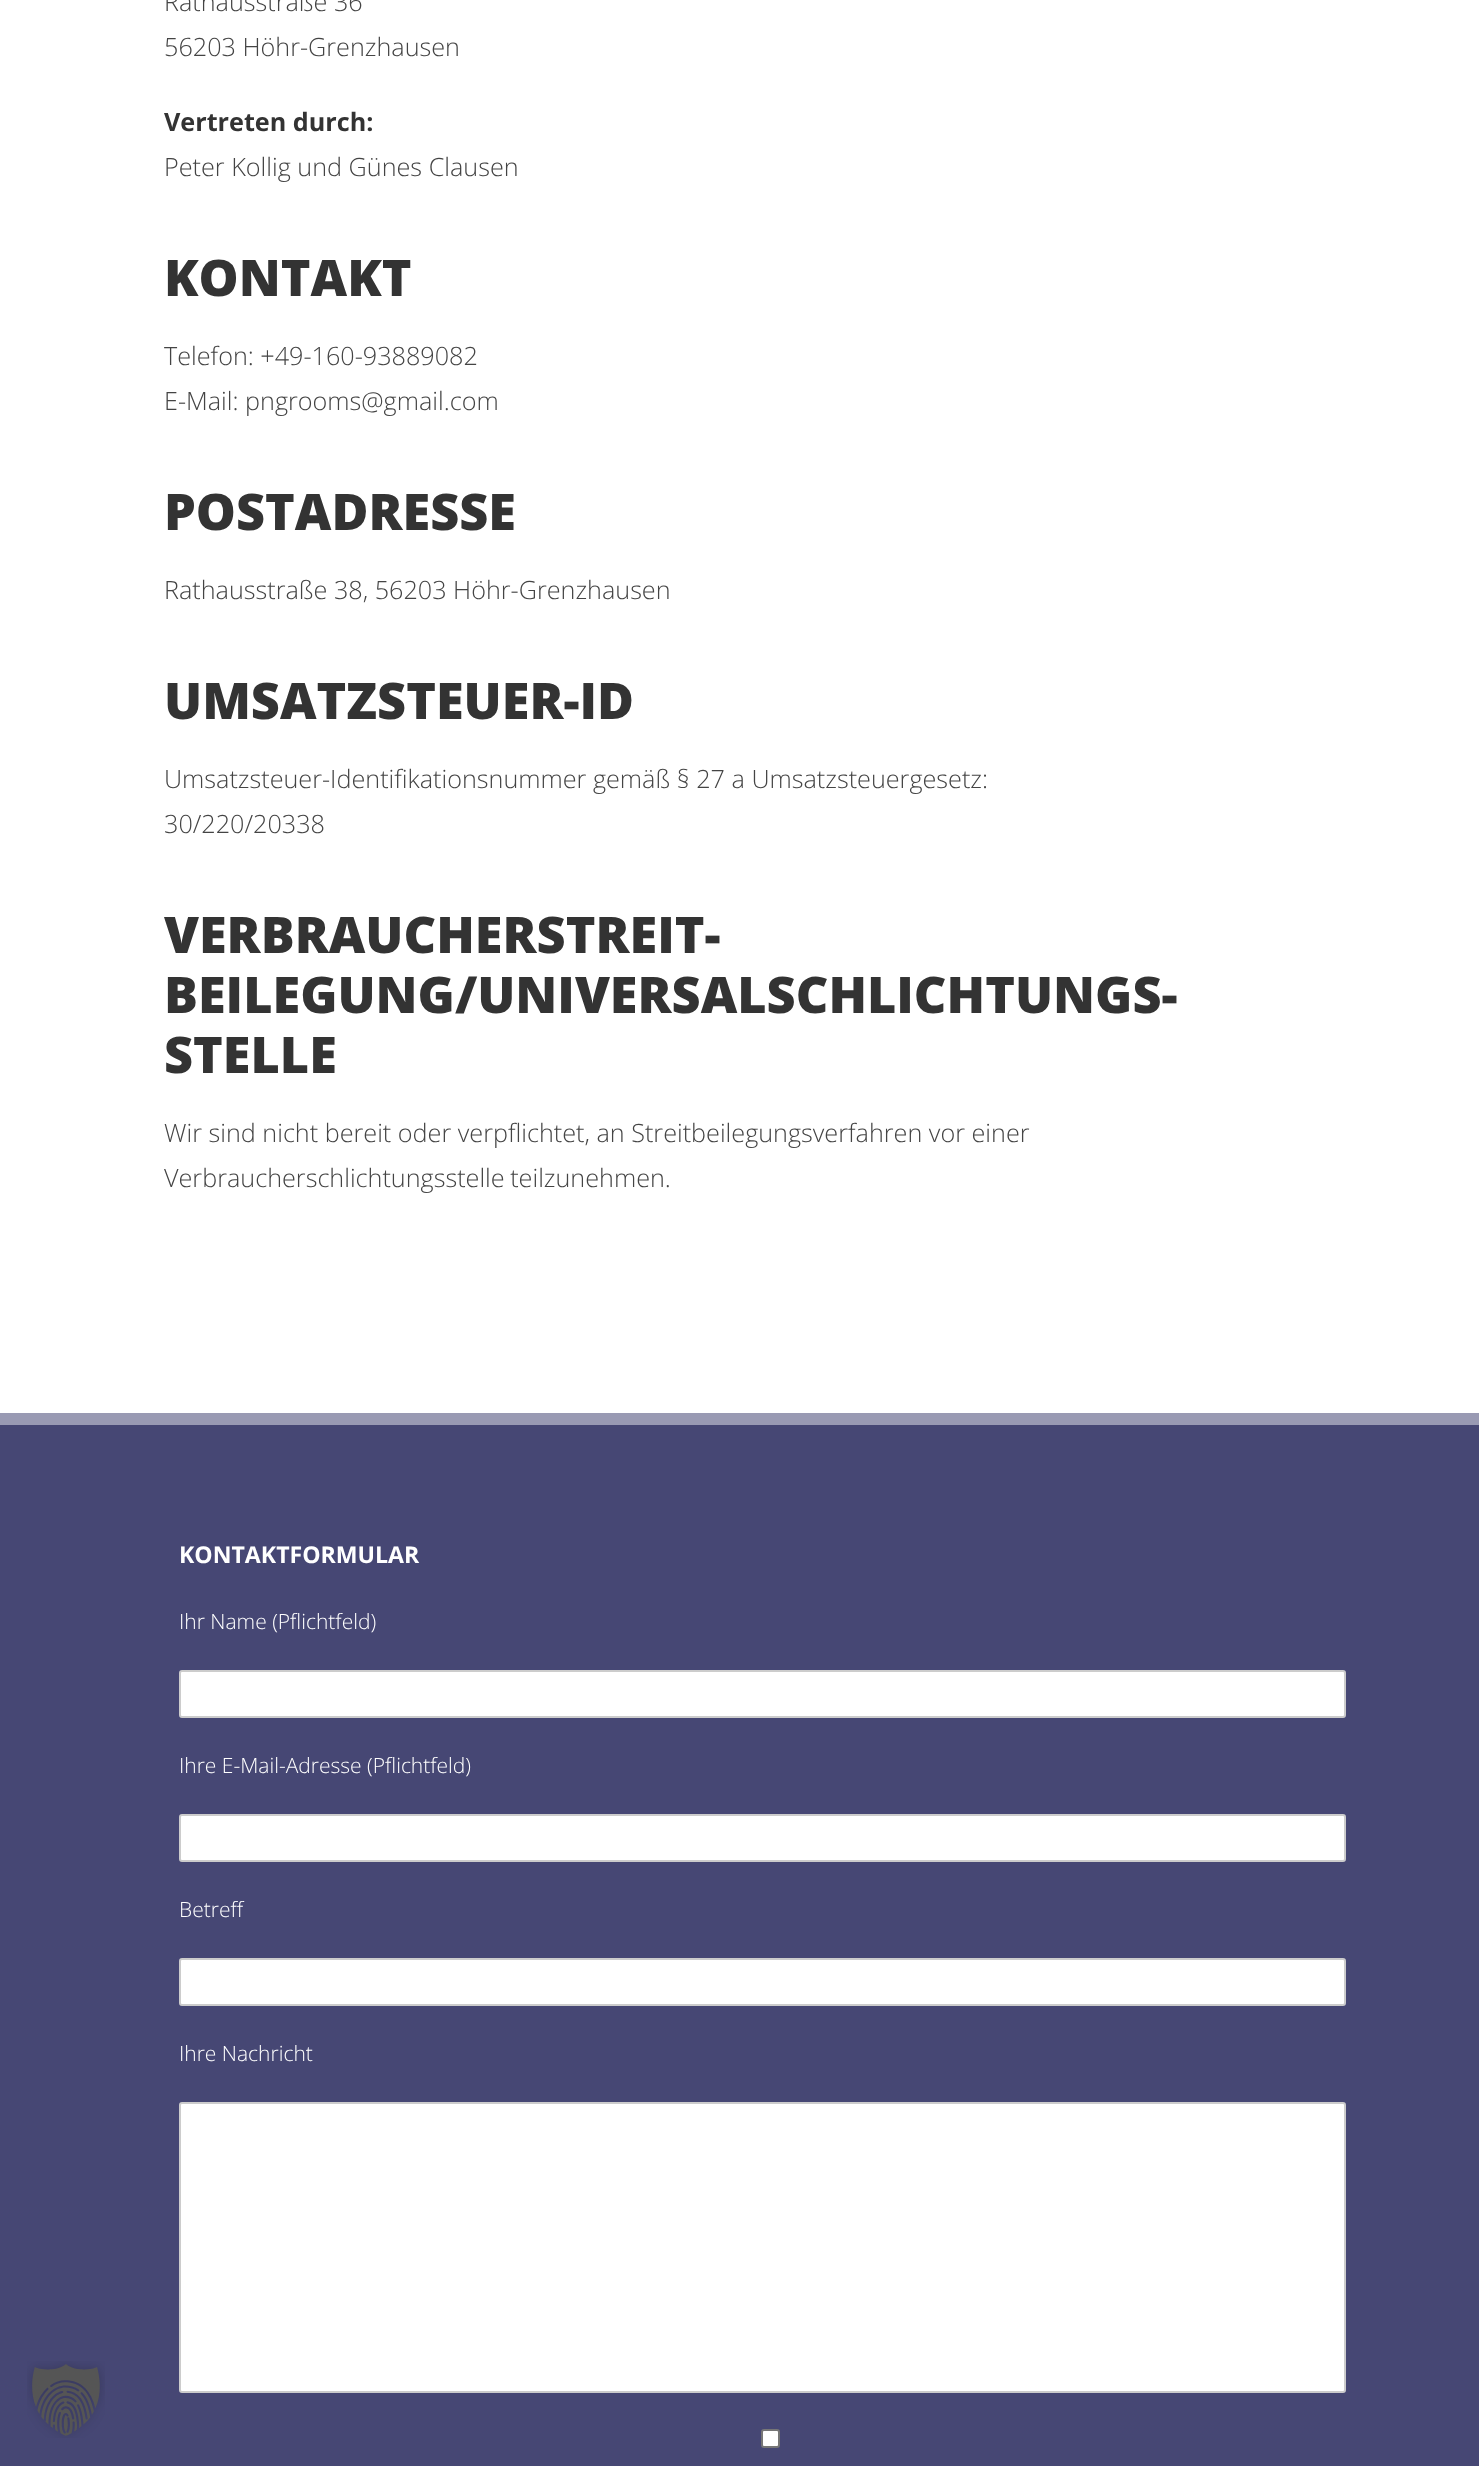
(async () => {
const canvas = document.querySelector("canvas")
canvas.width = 1479
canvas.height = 2466
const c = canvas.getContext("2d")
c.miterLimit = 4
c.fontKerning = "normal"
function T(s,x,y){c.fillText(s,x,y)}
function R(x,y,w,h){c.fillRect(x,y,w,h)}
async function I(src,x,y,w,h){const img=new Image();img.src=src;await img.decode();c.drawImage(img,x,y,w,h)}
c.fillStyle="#fff"
R(0,0,1479,2466)
c.font="300 25.2px Open Sans"
c.fillStyle="#444"
T("Rathausstraße 36",164,11)
T("56203 Höhr-Grenzhausen",164,56)
c.font="bold 25.2px Open Sans"
c.fillStyle="#333"
T("Vertreten durch:",164,131)
c.font="300 25.2px Open Sans"
c.fillStyle="#444"
T("Peter Kollig und Günes Clausen",164,176)
c.font="800 50.4px Open Sans"
c.fillStyle="#333"
T("KONTAKT",164,296)
c.font="300 25.2px Open Sans"
c.fillStyle="#444"
T("Telefon: +49-160-93889082",164,365)
T("E-Mail: pngrooms@gmail.com",164,410)
c.font="800 50.4px Open Sans"
c.fillStyle="#333"
T("POSTADRESSE",164,530)
c.font="300 25.2px Open Sans"
c.fillStyle="#444"
T("Rathausstraße 38, 56203 Höhr-Grenzhausen",164,599)
c.font="800 50.4px Open Sans"
c.fillStyle="#333"
T("UMSATZSTEUER-ID",164,719)
c.font="300 25.2px Open Sans"
c.fillStyle="#444"
T("Umsatzsteuer-Identifikationsnummer gemäß § 27 a Umsatzsteuergesetz:",164,788)
T("30/220/20338",164,833)
c.font="800 50.4px Open Sans"
c.fillStyle="#333"
T("VERBRAUCHERSTREIT-",164,953)
T("BEILEGUNG/UNIVERSALSCHLICHTUNGS-",164,1013)
T("STELLE",164,1073)
c.font="300 25.2px Open Sans"
c.fillStyle="#444"
T("Wir sind nicht bereit oder verpflichtet, an Streitbeilegungsverfahren vor einer",164,1142)
c.wordSpacing="-1px"
T("Verbraucherschlichtungsstelle teilzunehmen.",164,1187)
c.fillStyle="#999ab3"
R(0,1413,1479,12)
c.fillStyle="#464774"
R(0,1425,1479,1041)
c.wordSpacing="0px"
c.font="bold 23.1px Open Sans"
c.fillStyle="#fff"
T("KONTAKTFORMULAR",179,1563)
c.font="300 21px Open Sans"
T("Ihr Name (Pflichtfeld)",179,1629)
c.beginPath()
c.roundRect(180,1671,1165,46,2)
c.fill()
c.strokeStyle="#ccc"
c.lineWidth=2
c.stroke()
T("Ihre E-Mail-Adresse (Pflichtfeld)",179,1773)
c.beginPath()
c.roundRect(180,1815,1165,46,2)
c.fill()
c.stroke()
T("Betreff",179,1917)
c.beginPath()
c.roundRect(180,1959,1165,46,2)
c.fill()
c.stroke()
T("Ihre Nachricht",179,2061)
c.beginPath()
c.roundRect(180,2103,1165,289,2)
c.fill()
c.stroke()
c.beginPath()
c.roundRect(762,2430,17,17,2)
c.fill()
c.strokeStyle="#767676"
c.stroke()
await I("1.png",27,2361,78,77)
})()
